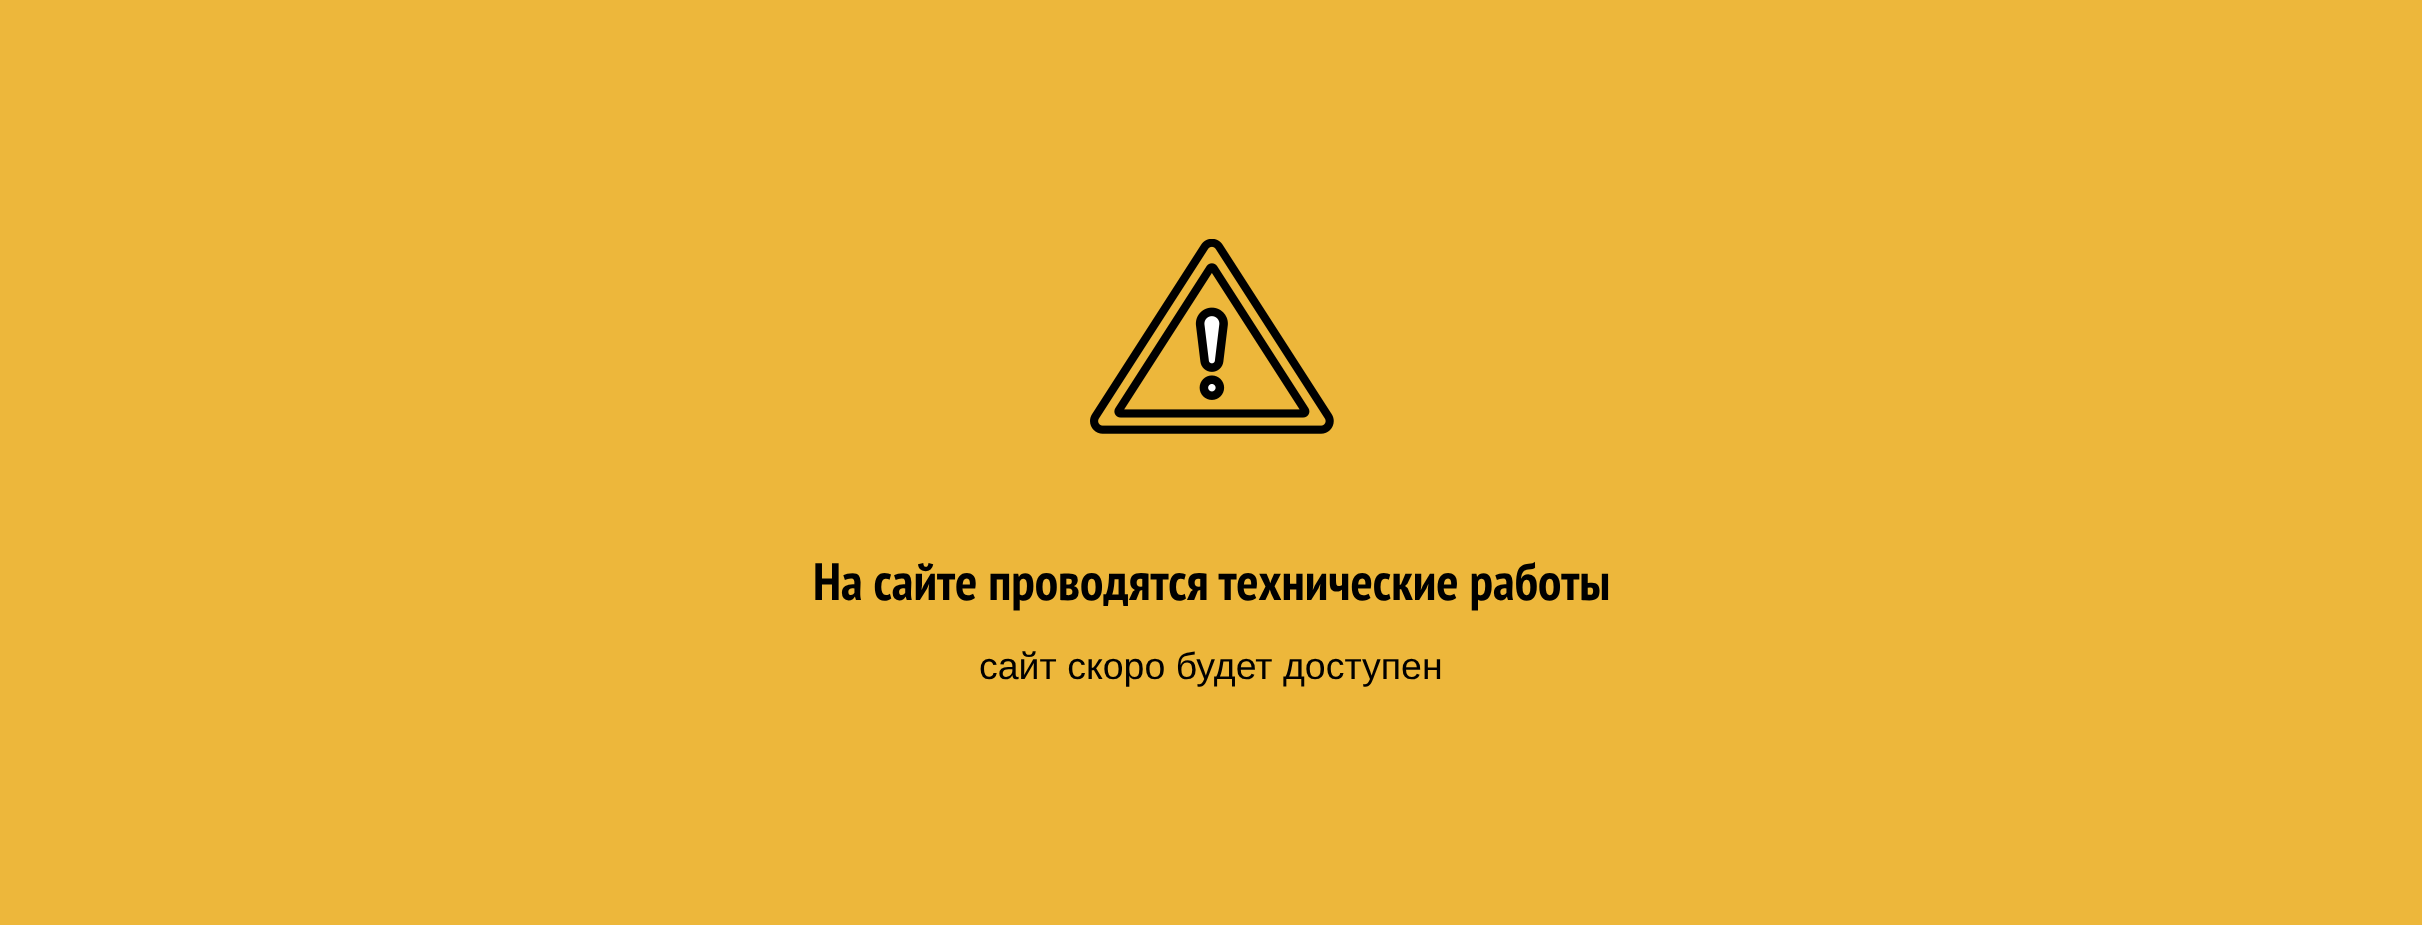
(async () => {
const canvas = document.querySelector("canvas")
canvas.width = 2422
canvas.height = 925
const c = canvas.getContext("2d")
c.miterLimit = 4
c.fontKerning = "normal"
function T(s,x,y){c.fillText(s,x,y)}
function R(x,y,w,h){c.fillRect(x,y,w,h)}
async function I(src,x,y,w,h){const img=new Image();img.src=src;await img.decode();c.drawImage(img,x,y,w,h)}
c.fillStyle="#edb73b"
R(0,0,2422,925)
await I("1.png",1090,239,244,195)
c.font="bold 52.5px PT Sans Narrow"
c.fillStyle="#000"
T("На сайте проводятся технические работы",813,600)
c.font="37.5px Liberation Sans"
T("сайт скоро будет доступен",979,679)
})()
